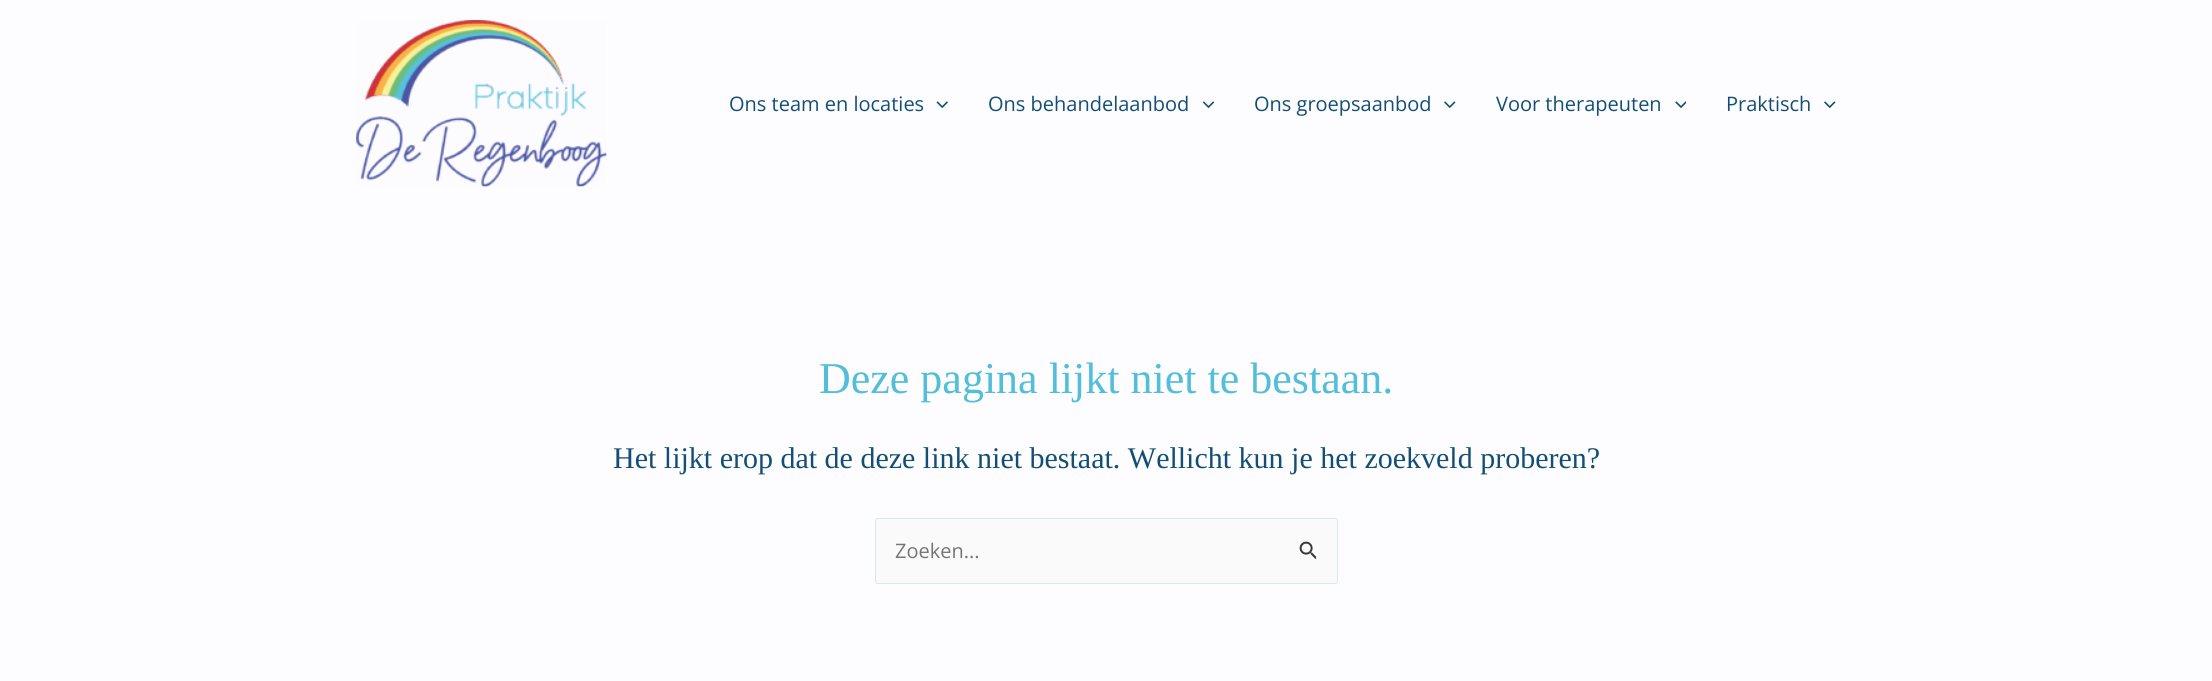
#include <cairo.h>
#include <math.h>
#include <stddef.h>


static void rgb(cairo_t *cr, int r, int g, int b)
{
	cairo_set_source_rgb(cr, r / 255.0, g / 255.0, b / 255.0);
}

static void face(cairo_t *cr, const char *family, double size, int italic, int bold)
{
	cairo_select_font_face(cr, family, italic ? CAIRO_FONT_SLANT_ITALIC : CAIRO_FONT_SLANT_NORMAL,
		bold ? CAIRO_FONT_WEIGHT_BOLD : CAIRO_FONT_WEIGHT_NORMAL);
	cairo_set_font_size(cr, size);
}

static void label(cairo_t *cr, double x, double y, const char *s)
{
	cairo_move_to(cr, x, y);
	cairo_show_text(cr, s);
}

static void rrect(cairo_t *cr, double x, double y, double w, double h, double r)
{
	cairo_new_sub_path(cr);
	cairo_arc(cr, x + w - r, y + h - r, r, 0, M_PI / 2);
	cairo_arc(cr, x + r, y + h - r, r, M_PI / 2, M_PI);
	cairo_arc(cr, x + r, y + r, r, M_PI, 1.5 * M_PI);
	cairo_arc(cr, x + w - r, y + r, r, 1.5 * M_PI, 2 * M_PI);
	cairo_close_path(cr);
}

static void image(cairo_t *cr, const char *path, double x, double y, double w, double h)
{
	cairo_surface_t *image = cairo_image_surface_create_from_png(path);
	cairo_save(cr);
	cairo_set_source_surface(cr, image, x, y);
	cairo_rectangle(cr, x, y, w, h);
	cairo_fill(cr);
	cairo_restore(cr);
	cairo_surface_destroy(image);
}

static void draw(cairo_t *cr) {
	rgb(cr, 253, 253, 255);
	cairo_paint(cr);
	image(cr, "image0.png", 356, 20, 251, 167);
	face(cr, "Open Sans", 20, 0, 0);
	rgb(cr, 19, 79, 116);
	label(cr, 729, 111, "Ons team en locaties");
	image(cr, "image1.png", 936, 101, 12, 8);
	label(cr, 988, 111, "Ons behandelaanbod");
	image(cr, "image2.png", 1203, 101, 11, 8);
	label(cr, 1254, 111, "Ons groepsaanbod");
	image(cr, "image3.png", 1444, 101, 12, 8);
	label(cr, 1496, 111, "Voor therapeuten");
	image(cr, "image4.png", 1675, 101, 11, 8);
	label(cr, 1726, 111, "Praktisch");
	image(cr, "image3.png", 1824, 101, 12, 8);
	face(cr, "Liberation Serif", 44, 0, 0);
	rgb(cr, 83, 190, 217);
	label(cr, 819, 393, "Deze pagina lijkt niet te bestaan.");
	face(cr, "Liberation Serif", 30, 0, 0);
	rgb(cr, 19, 79, 116);
	label(cr, 613, 468, "Het lijkt erop dat de deze link niet bestaat. Wellicht kun je het zoekveld proberen?");
	rgb(cr, 250, 250, 250);
	rrect(cr, 875.5, 518.5, 462, 65, 2);
	cairo_fill_preserve(cr);
	rgb(cr, 219, 232, 235);
	cairo_set_line_width(cr, 1);
	cairo_stroke(cr);
	face(cr, "Open Sans", 20, 0, 0);
	rgb(cr, 117, 117, 117);
	label(cr, 895, 558, "Zoeken...");
	image(cr, "image5.png", 1299, 541, 17, 18);
}

int main(void) {
	cairo_surface_t *surface = cairo_image_surface_create(CAIRO_FORMAT_RGB24, 2212, 681);
	cairo_t *cr = cairo_create(surface);
	cairo_font_options_t *options = cairo_font_options_create();
	cairo_font_options_set_hint_metrics(options, CAIRO_HINT_METRICS_OFF);
	cairo_font_options_set_hint_style(options, CAIRO_HINT_STYLE_NONE);
	cairo_set_font_options(cr, options);
	cairo_set_miter_limit(cr, 4);
	draw(cr);
	cairo_surface_write_to_png(surface, "render.png");
	cairo_font_options_destroy(options);
	cairo_destroy(cr);
	cairo_surface_destroy(surface);
	return 0;
}
